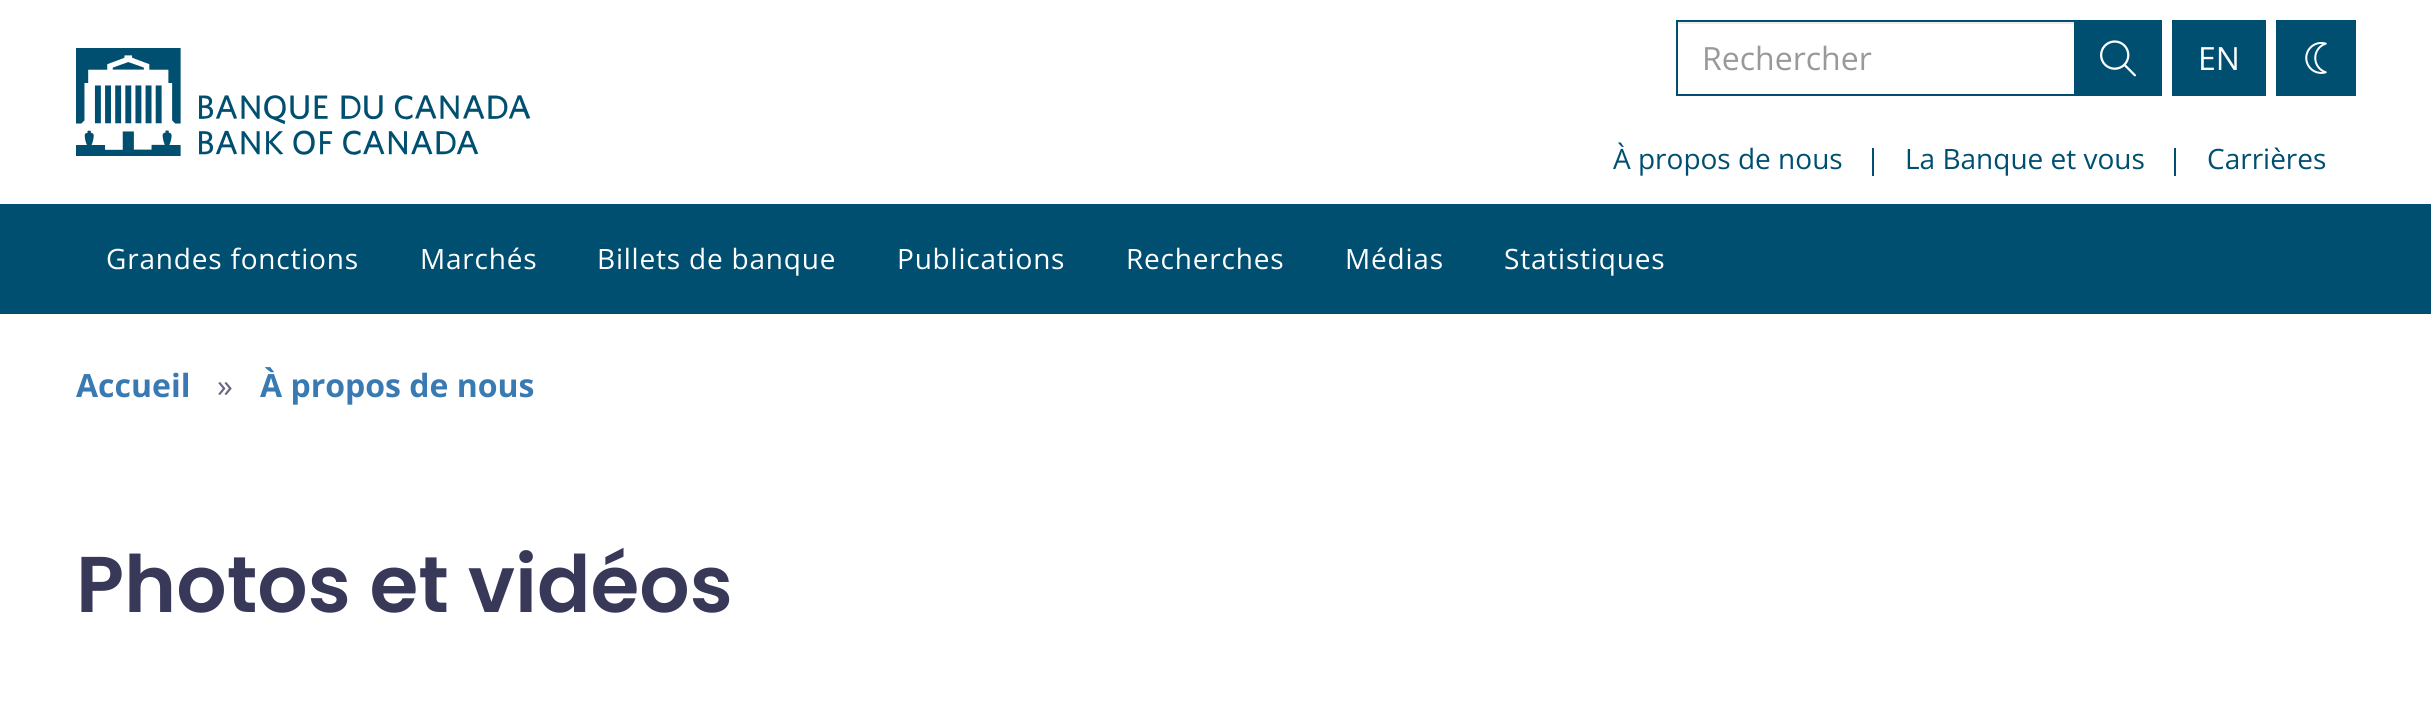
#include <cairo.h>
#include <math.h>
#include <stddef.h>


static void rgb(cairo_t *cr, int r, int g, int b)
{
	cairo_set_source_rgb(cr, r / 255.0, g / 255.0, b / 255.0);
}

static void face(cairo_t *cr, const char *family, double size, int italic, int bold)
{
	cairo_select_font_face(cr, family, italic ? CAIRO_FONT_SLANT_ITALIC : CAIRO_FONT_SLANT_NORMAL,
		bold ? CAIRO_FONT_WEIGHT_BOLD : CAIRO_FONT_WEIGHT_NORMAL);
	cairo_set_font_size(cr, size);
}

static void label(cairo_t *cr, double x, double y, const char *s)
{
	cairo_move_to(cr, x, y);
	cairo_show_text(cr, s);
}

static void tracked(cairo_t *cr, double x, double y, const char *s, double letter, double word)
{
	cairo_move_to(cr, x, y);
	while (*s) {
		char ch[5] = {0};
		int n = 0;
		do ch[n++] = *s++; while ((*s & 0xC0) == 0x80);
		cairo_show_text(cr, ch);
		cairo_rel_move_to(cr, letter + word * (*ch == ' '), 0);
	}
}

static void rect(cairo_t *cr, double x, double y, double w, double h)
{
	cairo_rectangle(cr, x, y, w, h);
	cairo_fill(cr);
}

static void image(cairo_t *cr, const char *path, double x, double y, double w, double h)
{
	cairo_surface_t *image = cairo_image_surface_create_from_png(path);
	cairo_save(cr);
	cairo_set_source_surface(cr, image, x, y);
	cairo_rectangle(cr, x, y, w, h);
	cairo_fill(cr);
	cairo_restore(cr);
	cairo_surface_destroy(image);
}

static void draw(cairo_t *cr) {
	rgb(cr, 255, 255, 255);
	cairo_paint(cr);
	image(cr, "image0.png", 76, 48, 455, 108);
	rgb(cr, 236, 236, 236);
	rect(cr, 1678, 22, 396, 2);
	cairo_rectangle(cr, 1677, 21, 398, 74);
	rgb(cr, 0, 79, 113);
	cairo_stroke(cr);
	face(cr, "Open Sans", 32, 0, 0);
	rgb(cr, 153, 153, 153);
	label(cr, 1702, 70, "Rechercher");
	rgb(cr, 0, 79, 113);
	rect(cr, 2076, 20, 86, 76);
	image(cr, "image1.png", 2100, 40, 36, 37);
	rect(cr, 2172, 20, 94, 76);
	rgb(cr, 255, 255, 255);
	label(cr, 2198, 70, "EN");
	rgb(cr, 0, 79, 113);
	rect(cr, 2276, 20, 80, 76);
	image(cr, "image2.png", 2305, 42, 22, 32);
	face(cr, "Open Sans", 28, 0, 0);
	label(cr, 1613, 169, "À propos de nous");
	rect(cr, 1872, 148, 2, 28);
	label(cr, 1905, 169, "La Banque et vous");
	rect(cr, 2174, 148, 2, 28);
	label(cr, 2207, 169, "Carrières");
	rect(cr, 0, 204, 2431, 110);
	rgb(cr, 255, 255, 255);
	tracked(cr, 106, 269, "Grandes fonctions", 0.8, 0);
	tracked(cr, 420, 269, "Marchés", 0.8, 0);
	tracked(cr, 597, 269, "Billets de banque", 0.8, 0);
	tracked(cr, 897, 269, "Publications", 0.8, 0);
	tracked(cr, 1126, 269, "Recherches", 0.8, 0);
	tracked(cr, 1345, 269, "Médias", 0.8, 0);
	tracked(cr, 1504, 269, "Statistiques", 0.8, 0);
	face(cr, "Open Sans", 32, 0, 1);
	rgb(cr, 57, 122, 178);
	label(cr, 76, 397, "Accueil");
	face(cr, "Open Sans", 32, 0, 0);
	rgb(cr, 103, 105, 132);
	label(cr, 217, 397, "»");
	face(cr, "Open Sans", 32, 0, 1);
	rgb(cr, 57, 122, 178);
	label(cr, 260, 397, "À propos de nous");
	face(cr, "Poppins SemiBold", 79, 0, 0);
	rgb(cr, 56, 56, 89);
	label(cr, 76, 612, "Photos et vidéos");
}

int main(void) {
	cairo_surface_t *surface = cairo_image_surface_create(CAIRO_FORMAT_RGB24, 2431, 719);
	cairo_t *cr = cairo_create(surface);
	cairo_font_options_t *options = cairo_font_options_create();
	cairo_font_options_set_hint_metrics(options, CAIRO_HINT_METRICS_OFF);
	cairo_font_options_set_hint_style(options, CAIRO_HINT_STYLE_NONE);
	cairo_set_font_options(cr, options);
	cairo_set_miter_limit(cr, 4);
	draw(cr);
	cairo_surface_write_to_png(surface, "render.png");
	cairo_font_options_destroy(options);
	cairo_destroy(cr);
	cairo_surface_destroy(surface);
	return 0;
}
